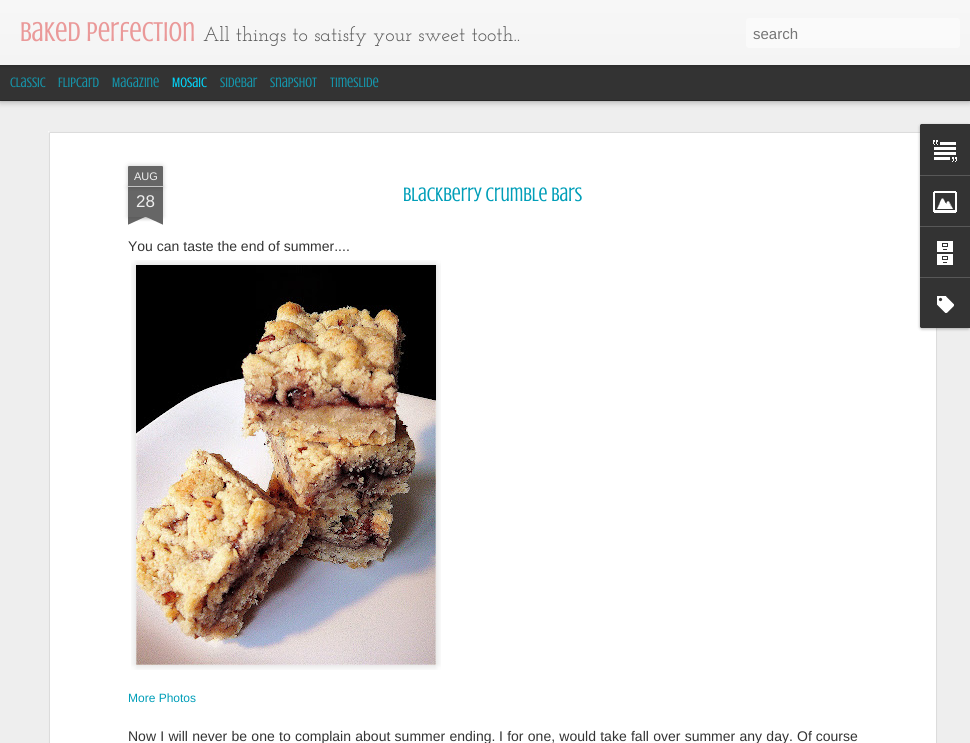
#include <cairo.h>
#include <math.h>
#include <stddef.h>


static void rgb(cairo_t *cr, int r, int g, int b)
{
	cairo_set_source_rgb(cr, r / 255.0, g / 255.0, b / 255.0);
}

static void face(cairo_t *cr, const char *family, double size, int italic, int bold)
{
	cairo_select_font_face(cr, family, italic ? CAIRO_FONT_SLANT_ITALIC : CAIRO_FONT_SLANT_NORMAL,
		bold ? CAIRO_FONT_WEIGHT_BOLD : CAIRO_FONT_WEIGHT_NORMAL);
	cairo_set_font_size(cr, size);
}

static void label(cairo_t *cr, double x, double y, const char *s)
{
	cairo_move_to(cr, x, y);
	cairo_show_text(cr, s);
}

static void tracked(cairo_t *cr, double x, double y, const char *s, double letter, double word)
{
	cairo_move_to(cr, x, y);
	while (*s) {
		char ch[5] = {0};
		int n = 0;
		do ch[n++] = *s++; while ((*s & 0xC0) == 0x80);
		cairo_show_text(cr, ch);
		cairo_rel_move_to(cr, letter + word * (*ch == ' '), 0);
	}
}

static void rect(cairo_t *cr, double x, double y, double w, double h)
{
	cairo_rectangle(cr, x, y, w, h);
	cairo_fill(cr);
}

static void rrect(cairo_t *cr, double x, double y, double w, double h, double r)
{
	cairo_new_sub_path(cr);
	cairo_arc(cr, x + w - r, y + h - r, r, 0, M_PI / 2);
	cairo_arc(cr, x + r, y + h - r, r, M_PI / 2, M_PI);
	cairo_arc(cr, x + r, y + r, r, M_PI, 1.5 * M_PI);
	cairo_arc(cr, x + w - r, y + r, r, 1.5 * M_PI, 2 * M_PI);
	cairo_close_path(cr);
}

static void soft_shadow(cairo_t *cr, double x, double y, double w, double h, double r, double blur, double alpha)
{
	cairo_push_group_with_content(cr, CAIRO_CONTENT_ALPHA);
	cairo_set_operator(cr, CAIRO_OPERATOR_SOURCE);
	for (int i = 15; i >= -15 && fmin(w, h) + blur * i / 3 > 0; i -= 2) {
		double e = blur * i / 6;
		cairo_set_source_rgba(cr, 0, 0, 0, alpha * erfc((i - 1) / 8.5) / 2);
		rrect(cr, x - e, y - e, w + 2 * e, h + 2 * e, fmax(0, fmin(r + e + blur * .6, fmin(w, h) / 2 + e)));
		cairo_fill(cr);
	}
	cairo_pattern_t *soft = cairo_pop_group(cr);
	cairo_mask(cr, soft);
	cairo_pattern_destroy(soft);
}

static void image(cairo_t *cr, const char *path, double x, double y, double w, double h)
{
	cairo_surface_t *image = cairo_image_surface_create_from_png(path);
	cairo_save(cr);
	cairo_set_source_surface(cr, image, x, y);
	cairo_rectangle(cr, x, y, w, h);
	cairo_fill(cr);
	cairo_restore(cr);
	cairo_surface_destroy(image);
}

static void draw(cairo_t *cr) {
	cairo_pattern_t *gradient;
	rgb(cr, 51, 51, 51);
	cairo_paint(cr);
	rgb(cr, 238, 238, 238);
	rect(cr, 0, 101, 970, 642);
	rgb(cr, 0, 0, 0);
	soft_shadow(cr, 0, 65, 970, 35, 0, 4, 0.5);
	rgb(cr, 51, 51, 51);
	rect(cr, 0, 65, 970, 35);
	rgb(cr, 0, 0, 0);
	soft_shadow(cr, 0, 0, 970, 65, 0, 2.5, 0.3);
	gradient = cairo_pattern_create_linear(0, 0, 0, 65);
	cairo_pattern_add_color_stop_rgba(gradient, 0, 0.969, 0.969, 0.969, 1);
	cairo_pattern_add_color_stop_rgba(gradient, 1, 0.957, 0.957, 0.957, 1);
	cairo_set_source(cr, gradient);
	cairo_pattern_destroy(gradient);
	rect(cr, 0, 0, 970, 65);
	face(cr, "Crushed", 28, 0, 0);
	rgb(cr, 234, 153, 153);
	label(cr, 20, 41, "Baked Perfection");
	face(cr, "Josefin Slab Thin", 20, 0, 0);
	rgb(cr, 85, 85, 85);
	label(cr, 203, 41, "All things to satisfy your sweet tooth..");
	rgb(cr, 250, 250, 250);
	rrect(cr, 746, 18, 214, 30, 3);
	cairo_fill(cr);
	face(cr, "Liberation Sans", 15, 0, 0);
	rgb(cr, 117, 117, 117);
	label(cr, 753, 39, "search");
	face(cr, "Crushed", 14, 0, 0);
	rgb(cr, 20, 151, 173);
	label(cr, 10, 87, "Classic");
	label(cr, 58, 87, "Flipcard");
	label(cr, 112, 87, "Magazine");
	rgb(cr, 0, 218, 255);
	label(cr, 172, 87, "Mosaic");
	rgb(cr, 20, 151, 173);
	label(cr, 220, 87, "Sidebar");
	label(cr, 270, 87, "Snapshot");
	label(cr, 330, 87, "Timeslide");
	rgb(cr, 255, 255, 255);
	rect(cr, 48, 131, 890, 612);
	image(cr, "image0.png", 48, 131, 890, 612);
	rgb(cr, 0, 0, 0);
	soft_shadow(cr, 128, 187, 35, 30, 0, 2.5, 0.2);
	rgb(cr, 102, 102, 102);
	rect(cr, 128, 187, 35, 30);
	rgb(cr, 0, 0, 0);
	soft_shadow(cr, 128, 166, 35, 21, 1, 2.5, 0.2);
	rgb(cr, 102, 102, 102);
	cairo_new_path(cr);
	cairo_move_to(cr, 129, 166);
	cairo_line_to(cr, 162, 166);
	cairo_curve_to(cr, 162.5, 166, 163, 166.5, 163, 167);
	cairo_line_to(cr, 163, 187);
	cairo_line_to(cr, 128, 187);
	cairo_line_to(cr, 128, 167);
	cairo_curve_to(cr, 128, 166.5, 128.5, 166, 129, 166);
	cairo_close_path(cr);
	cairo_fill(cr);
	rgb(cr, 194, 194, 194);
	rect(cr, 128, 186, 35, 1);
	face(cr, "Liberation Sans", 11, 0, 0);
	rgb(cr, 238, 238, 238);
	label(cr, 134, 180, "AUG");
	face(cr, "Liberation Sans", 17, 0, 0);
	label(cr, 136, 207, "28");
	cairo_save(cr);
	cairo_rectangle(cr, 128, 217, 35, 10);
	cairo_clip(cr);
	rgb(cr, 0, 0, 0);
	soft_shadow(cr, 119, 207, 50, 10, 0, 2.5, 0.2);
	cairo_restore(cr);
	cairo_save(cr);
	cairo_rectangle(cr, 128, 217, 35, 10);
	cairo_clip(cr);
	rgb(cr, 102, 102, 102);
	cairo_new_path(cr);
	cairo_move_to(cr, 119, 218);
	cairo_line_to(cr, 165, 197);
	cairo_line_to(cr, 169, 206);
	cairo_line_to(cr, 123, 227);
	cairo_close_path(cr);
	cairo_fill(cr);
	cairo_restore(cr);
	cairo_save(cr);
	cairo_rectangle(cr, 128, 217, 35, 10);
	cairo_clip(cr);
	rgb(cr, 0, 0, 0);
	soft_shadow(cr, 122, 207, 50, 10, 0, 2.5, 0.2);
	cairo_restore(cr);
	cairo_save(cr);
	cairo_rectangle(cr, 128, 217, 35, 10);
	cairo_clip(cr);
	rgb(cr, 102, 102, 102);
	cairo_new_path(cr);
	cairo_move_to(cr, 126, 197);
	cairo_line_to(cr, 172, 218);
	cairo_line_to(cr, 168, 227);
	cairo_line_to(cr, 122, 206);
	cairo_close_path(cr);
	cairo_fill(cr);
	cairo_restore(cr);
	face(cr, "Crushed", 20, 0, 0);
	rgb(cr, 0, 158, 184);
	label(cr, 403, 201, "Blackberry Crumble Bars");
	face(cr, "Liberation Sans", 14, 0, 0);
	rgb(cr, 51, 51, 51);
	label(cr, 128, 251, "You can taste the end of summer....");
	image(cr, "image1.png", 131, 260, 310, 410);
	face(cr, "Liberation Sans", 12, 0, 0);
	rgb(cr, 0, 158, 184);
	label(cr, 128, 702, "More Photos");
	face(cr, "Liberation Sans", 14, 0, 0);
	rgb(cr, 51, 51, 51);
	tracked(cr, 128, 741, "Now I will never be one to complain about summer ending.", 0, 0.4);
	tracked(cr, 499, 741, "I for one, would take fall over summer any day.", 0, 0.4);
	label(cr, 797, 741, "Of course");
	rgb(cr, 0, 0, 0);
	soft_shadow(cr, 920, 125, 50, 204, 2, 1.5, 0.3);
	rgb(cr, 51, 51, 51);
	cairo_new_path(cr);
	cairo_move_to(cr, 922, 124);
	cairo_line_to(cr, 970, 124);
	cairo_line_to(cr, 970, 328);
	cairo_line_to(cr, 922, 328);
	cairo_curve_to(cr, 921, 328, 920, 327, 920, 326);
	cairo_line_to(cr, 920, 126);
	cairo_curve_to(cr, 920, 125, 921, 124, 922, 124);
	cairo_close_path(cr);
	cairo_fill(cr);
	cairo_new_path(cr);
	cairo_move_to(cr, 922, 124);
	cairo_line_to(cr, 970, 124);
	cairo_line_to(cr, 970, 175);
	cairo_line_to(cr, 920, 175);
	cairo_line_to(cr, 920, 126);
	cairo_curve_to(cr, 920, 125, 921, 124, 922, 124);
	cairo_close_path(cr);
	cairo_fill(cr);
	image(cr, "image2.png", 933, 140, 24, 22);
	rgb(cr, 88, 88, 88);
	rect(cr, 920, 175, 50, 1);
	image(cr, "image3.png", 933, 191, 24, 22);
	rect(cr, 920, 226, 50, 1);
	image(cr, "image4.png", 937, 241, 16, 24);
	rgb(cr, 51, 51, 51);
	cairo_new_path(cr);
	cairo_move_to(cr, 920, 277);
	cairo_line_to(cr, 970, 277);
	cairo_line_to(cr, 970, 328);
	cairo_line_to(cr, 922, 328);
	cairo_curve_to(cr, 921, 328, 920, 327, 920, 326);
	cairo_close_path(cr);
	cairo_fill(cr);
	rgb(cr, 88, 88, 88);
	rect(cr, 920, 277, 50, 1);
	image(cr, "image5.png", 937, 296, 17, 17);
}

int main(void) {
	cairo_surface_t *surface = cairo_image_surface_create(CAIRO_FORMAT_RGB24, 970, 743);
	cairo_t *cr = cairo_create(surface);
	cairo_font_options_t *options = cairo_font_options_create();
	cairo_font_options_set_hint_metrics(options, CAIRO_HINT_METRICS_OFF);
	cairo_font_options_set_hint_style(options, CAIRO_HINT_STYLE_NONE);
	cairo_set_font_options(cr, options);
	cairo_set_miter_limit(cr, 4);
	draw(cr);
	cairo_surface_write_to_png(surface, "render.png");
	cairo_font_options_destroy(options);
	cairo_destroy(cr);
	cairo_surface_destroy(surface);
	return 0;
}
